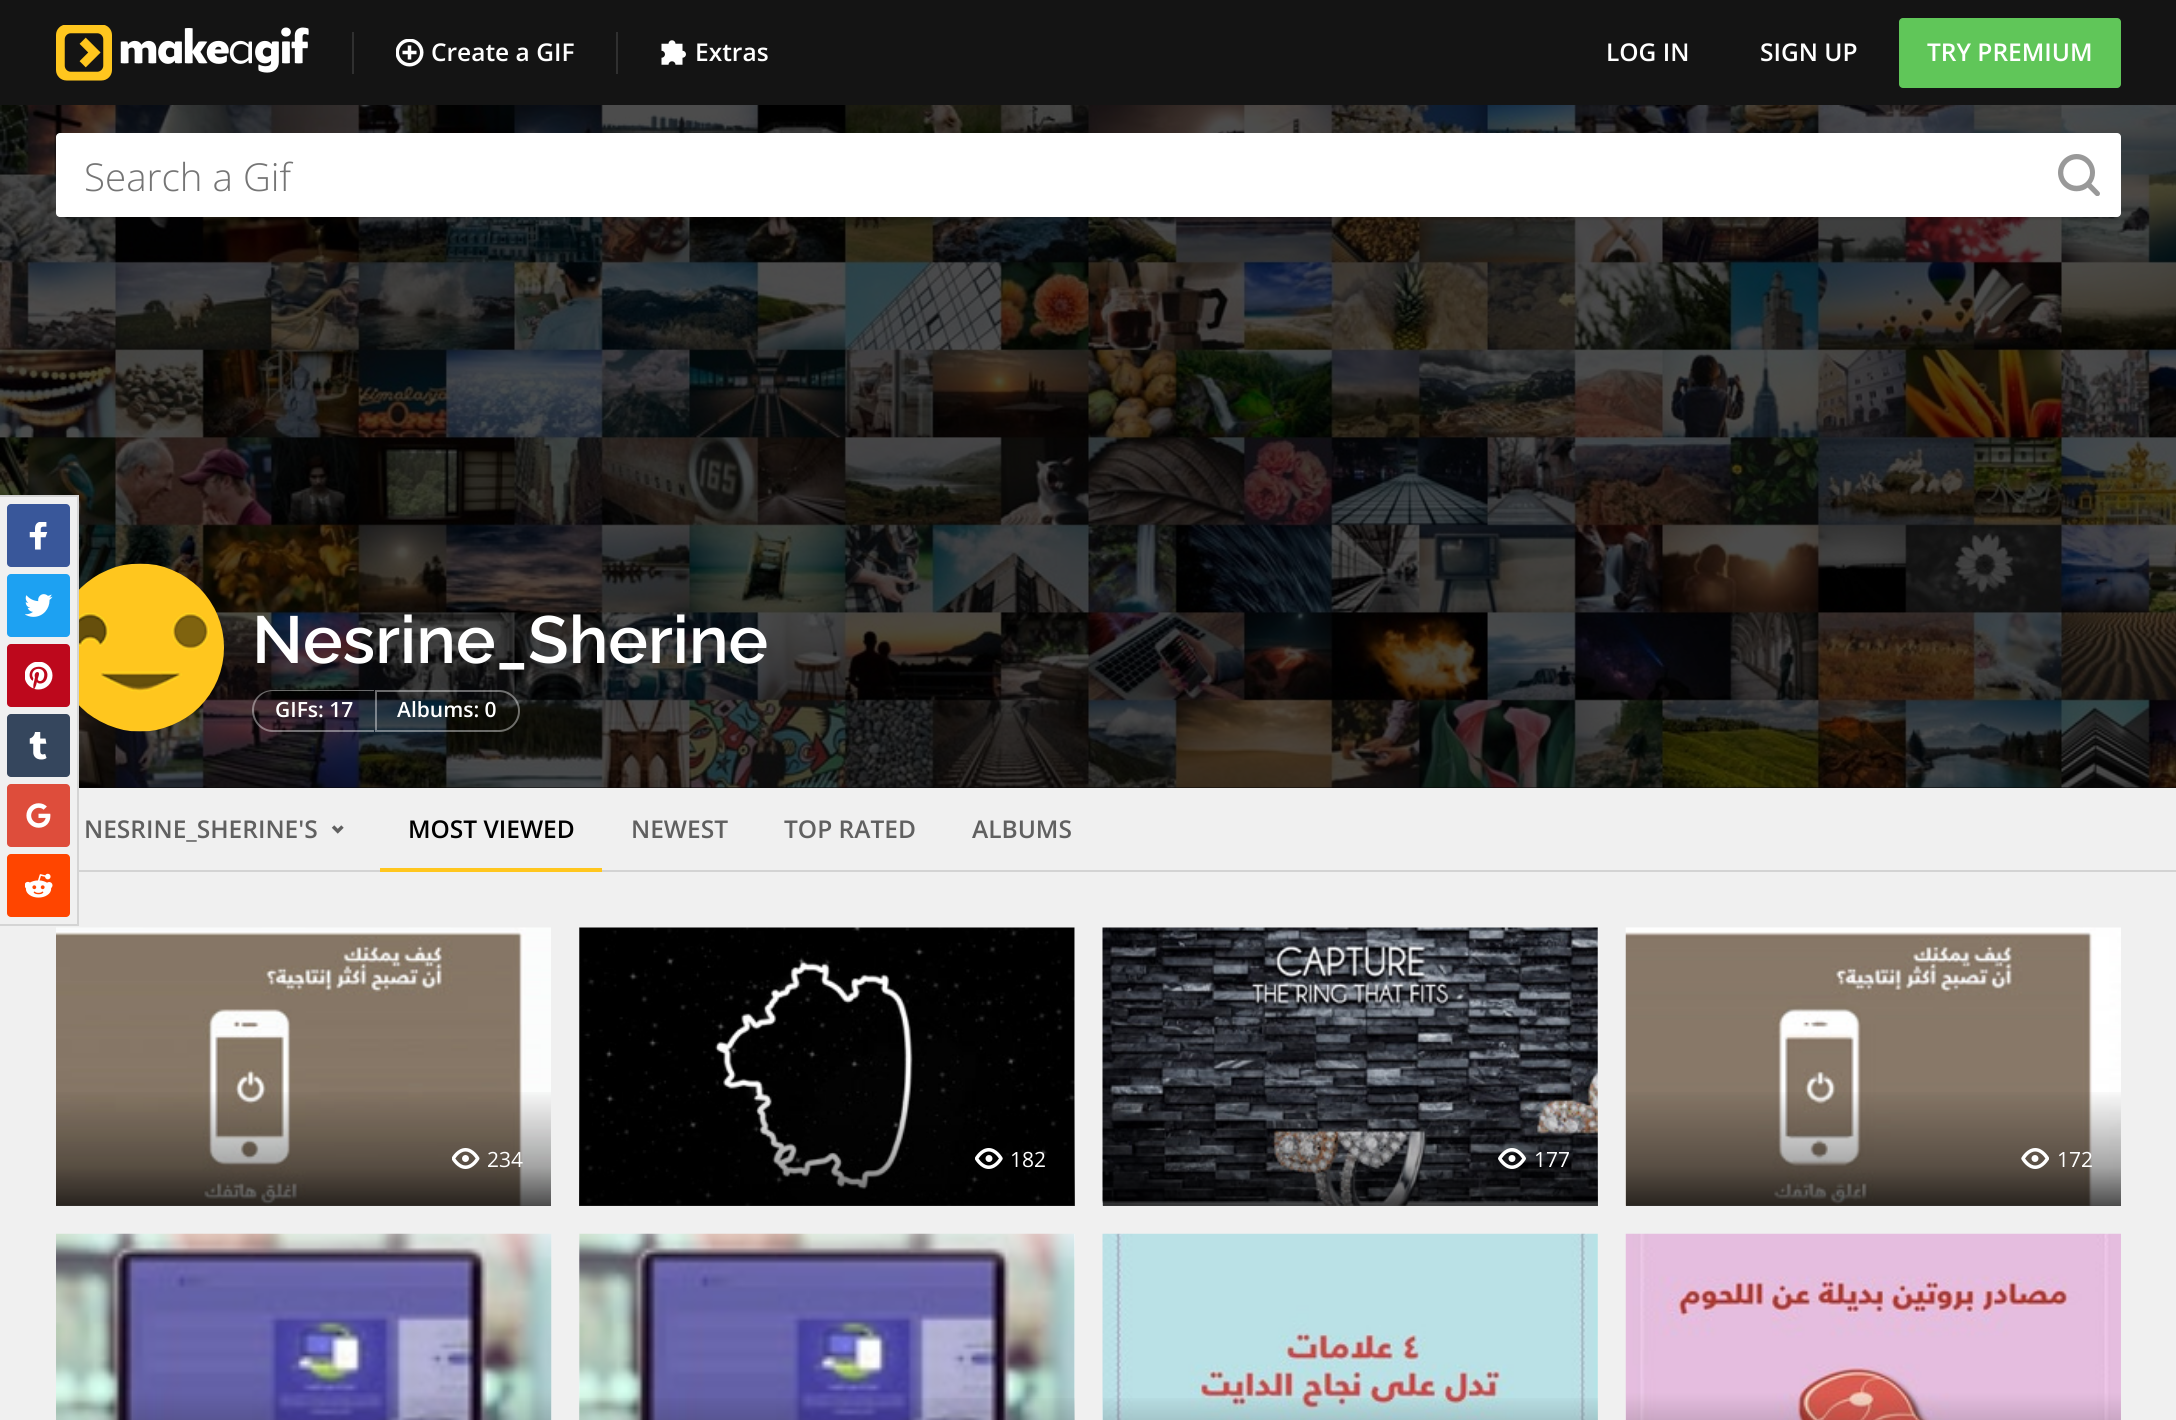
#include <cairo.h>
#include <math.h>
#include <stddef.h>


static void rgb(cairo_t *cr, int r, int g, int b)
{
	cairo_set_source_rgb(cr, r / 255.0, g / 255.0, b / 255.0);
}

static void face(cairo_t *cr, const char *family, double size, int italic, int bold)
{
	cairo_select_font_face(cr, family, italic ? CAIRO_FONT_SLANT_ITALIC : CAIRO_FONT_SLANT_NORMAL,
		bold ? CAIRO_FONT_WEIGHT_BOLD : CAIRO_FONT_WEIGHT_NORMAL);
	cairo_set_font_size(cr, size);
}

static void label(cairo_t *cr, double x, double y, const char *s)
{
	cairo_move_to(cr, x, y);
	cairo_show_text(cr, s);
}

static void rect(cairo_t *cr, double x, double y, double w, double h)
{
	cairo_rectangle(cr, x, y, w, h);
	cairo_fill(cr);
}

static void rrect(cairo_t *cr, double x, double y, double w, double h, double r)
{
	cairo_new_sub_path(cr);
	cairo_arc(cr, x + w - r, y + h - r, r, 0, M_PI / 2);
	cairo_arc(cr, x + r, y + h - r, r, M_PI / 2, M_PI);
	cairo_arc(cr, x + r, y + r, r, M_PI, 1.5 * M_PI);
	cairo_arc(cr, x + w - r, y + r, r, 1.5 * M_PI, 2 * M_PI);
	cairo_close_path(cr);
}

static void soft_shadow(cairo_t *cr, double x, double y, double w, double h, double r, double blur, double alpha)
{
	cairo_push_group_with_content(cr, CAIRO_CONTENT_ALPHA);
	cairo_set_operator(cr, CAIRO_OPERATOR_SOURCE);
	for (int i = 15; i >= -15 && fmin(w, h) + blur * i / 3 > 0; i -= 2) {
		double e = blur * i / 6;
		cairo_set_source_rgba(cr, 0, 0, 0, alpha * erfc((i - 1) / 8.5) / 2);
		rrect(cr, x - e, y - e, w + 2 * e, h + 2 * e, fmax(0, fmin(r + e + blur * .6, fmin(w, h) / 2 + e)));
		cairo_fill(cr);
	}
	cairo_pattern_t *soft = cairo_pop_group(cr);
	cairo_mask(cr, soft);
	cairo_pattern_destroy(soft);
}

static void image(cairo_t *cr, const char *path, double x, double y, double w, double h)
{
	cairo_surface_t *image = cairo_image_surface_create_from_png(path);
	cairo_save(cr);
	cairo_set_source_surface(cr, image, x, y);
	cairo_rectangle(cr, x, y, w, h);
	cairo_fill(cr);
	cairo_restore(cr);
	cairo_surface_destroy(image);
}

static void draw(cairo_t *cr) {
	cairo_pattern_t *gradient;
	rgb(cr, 240, 240, 240);
	cairo_paint(cr);
	rgb(cr, 20, 20, 20);
	rect(cr, 0, 0, 2176, 105);
	image(cr, "image0.png", 56, 25, 253, 56);
	rgb(cr, 48, 48, 48);
	rect(cr, 352, 32, 2, 42);
	image(cr, "image1.png", 396, 39, 28, 28);
	face(cr, "Open Sans SemiBold", 24.5, 0, 0);
	rgb(cr, 255, 255, 255);
	label(cr, 431, 61, "Create a GIF");
	rgb(cr, 48, 48, 48);
	rect(cr, 616, 32, 2, 42);
	image(cr, "image2.png", 661, 40, 25, 25);
	rgb(cr, 255, 255, 255);
	label(cr, 695, 61, "Extras");
	label(cr, 1606, 61, "LOG IN");
	label(cr, 1760, 61, "SIGN UP");
	rgb(cr, 96, 198, 89);
	rrect(cr, 1899, 18, 222, 70, 4);
	cairo_fill(cr);
	rgb(cr, 255, 255, 255);
	label(cr, 1927, 61, "TRY PREMIUM");
	rgb(cr, 9, 9, 9);
	rect(cr, 79, 787, 2097, 1);
	image(cr, "image9.png", 0, 105, 2176, 683);
	rgb(cr, 240, 240, 240);
	rect(cr, 0, 495, 79, 293);
	rgb(cr, 211, 211, 211);
	cairo_new_path(cr);
	cairo_move_to(cr, 0, 495);
	cairo_line_to(cr, 79, 495);
	cairo_line_to(cr, 77, 497);
	cairo_line_to(cr, 0, 497);
	cairo_close_path(cr);
	cairo_fill(cr);
	cairo_set_source_rgba(cr, 0, 0, 0, 0.12);
	cairo_new_path(cr);
	cairo_move_to(cr, 79, 495);
	cairo_line_to(cr, 79, 926);
	cairo_line_to(cr, 77, 924);
	cairo_line_to(cr, 77, 497);
	cairo_close_path(cr);
	cairo_fill(cr);
	cairo_new_path(cr);
	cairo_move_to(cr, 79, 926);
	cairo_line_to(cr, 0, 926);
	cairo_line_to(cr, 0, 924);
	cairo_line_to(cr, 77, 924);
	cairo_close_path(cr);
	cairo_fill(cr);
	rgb(cr, 57, 87, 154);
	rrect(cr, 7, 504, 63, 63, 4);
	cairo_fill(cr);
	image(cr, "image3.png", 29, 522, 19, 28);
	rgb(cr, 29, 161, 242);
	rrect(cr, 7, 574, 63, 63, 4);
	cairo_fill(cr);
	image(cr, "image4.png", 25, 594, 28, 23);
	rgb(cr, 189, 8, 28);
	rrect(cr, 7, 644, 63, 63, 4);
	cairo_fill(cr);
	image(cr, "image5.png", 25, 662, 28, 28);
	rgb(cr, 53, 70, 93);
	rrect(cr, 7, 714, 63, 63, 4);
	cairo_fill(cr);
	image(cr, "image6.png", 29, 732, 18, 28);
	rgb(cr, 222, 77, 59);
	rrect(cr, 7, 784, 63, 63, 4);
	cairo_fill(cr);
	image(cr, "image7.png", 26, 803, 25, 25);
	rgb(cr, 255, 69, 0);
	rrect(cr, 7, 854, 63, 63, 4);
	cairo_fill(cr);
	image(cr, "image8.png", 25, 873, 28, 25);
	rgb(cr, 0, 0, 0);
	soft_shadow(cr, 60, 142, 2058, 77, 0, 1, 0.15);
	rgb(cr, 255, 255, 255);
	rrect(cr, 56, 133, 2065, 84, 4);
	cairo_fill(cr);
	face(cr, "Open Sans Light", 38.5, 0, 0);
	rgb(cr, 117, 117, 117);
	label(cr, 84, 191, "Search a Gif");
	image(cr, "image10.png", 2058, 154, 42, 42);
	image(cr, "image11.png", 79, 563, 145, 169);
	face(cr, "Raleway SemiBold", 66.5, 0, 0);
	rgb(cr, 255, 255, 255);
	label(cr, 252, 663, "Nesrine_Sherine");
	cairo_set_source_rgba(cr, 1, 1, 1, 0.4);
	cairo_set_fill_rule(cr, CAIRO_FILL_RULE_EVEN_ODD);
	cairo_new_path(cr);
	cairo_move_to(cr, 273, 690);
	cairo_line_to(cr, 374, 690);
	cairo_line_to(cr, 374, 732);
	cairo_line_to(cr, 273, 732);
	cairo_curve_to(cr, 261, 732, 252, 722, 252, 710);
	cairo_curve_to(cr, 252, 699, 261, 690, 273, 690);
	cairo_close_path(cr);
	cairo_move_to(cr, 273, 691);
	cairo_line_to(cr, 374, 691);
	cairo_line_to(cr, 374, 730);
	cairo_line_to(cr, 273, 730);
	cairo_curve_to(cr, 262, 730, 254, 721, 254, 710);
	cairo_curve_to(cr, 254, 700, 262, 691, 273, 691);
	cairo_close_path(cr);
	cairo_fill(cr);
	face(cr, "Open Sans SemiBold", 21, 0, 0);
	rgb(cr, 255, 255, 255);
	label(cr, 275, 717, "GIFs: 17");
	cairo_new_path(cr);
	cairo_move_to(cr, 376, 691);
	cairo_line_to(cr, 499, 691);
	cairo_curve_to(cr, 510, 691, 519, 700, 519, 711);
	cairo_curve_to(cr, 519, 722, 510, 731, 499, 731);
	cairo_line_to(cr, 376, 731);
	cairo_close_path(cr);
	cairo_set_source_rgba(cr, 1, 1, 1, 0.4);
	cairo_stroke(cr);
	rgb(cr, 255, 255, 255);
	label(cr, 397, 717, "Albums: 0");
	rgb(cr, 211, 211, 211);
	rect(cr, 79, 870, 2097, 2);
	face(cr, "Open Sans SemiBold", 24.5, 0, 0);
	rgb(cr, 96, 96, 96);
	label(cr, 84, 838, "NESRINE_SHERINE'S");
	image(cr, "image12.png", 331, 825, 13, 9);
	rgb(cr, 255, 198, 30);
	rect(cr, 380, 868, 222, 4);
	rgb(cr, 0, 0, 0);
	label(cr, 408, 838, "MOST VIEWED");
	rgb(cr, 96, 96, 96);
	label(cr, 631, 838, "NEWEST");
	label(cr, 784, 838, "TOP RATED");
	label(cr, 972, 838, "ALBUMS");
	image(cr, "image13.png", 56, 927, 495, 279);
	gradient = cairo_pattern_create_linear(304, 1206, 304, 1087);
	cairo_pattern_add_color_stop_rgba(gradient, 0, 0, 0, 0, 0.7);
	cairo_pattern_add_color_stop_rgba(gradient, 0.33, 0, 0, 0, 0.35);
	cairo_pattern_add_color_stop_rgba(gradient, 1, 0, 0, 0, 0);
	cairo_set_source(cr, gradient);
	cairo_pattern_destroy(gradient);
	rect(cr, 56, 1092, 495, 114);
	image(cr, "image14.png", 452, 1148, 28, 21);
	face(cr, "Open Sans", 21, 0, 0);
	rgb(cr, 255, 255, 255);
	label(cr, 487, 1167, "234");
	rect(cr, 579, 928, 496, 278);
	image(cr, "image15.png", 579, 927, 496, 279);
	gradient = cairo_pattern_create_linear(827, 1206, 827, 1087);
	cairo_pattern_add_color_stop_rgba(gradient, 0, 0, 0, 0, 0.7);
	cairo_pattern_add_color_stop_rgba(gradient, 0.33, 0, 0, 0, 0.35);
	cairo_pattern_add_color_stop_rgba(gradient, 1, 0, 0, 0, 0);
	cairo_set_source(cr, gradient);
	cairo_pattern_destroy(gradient);
	rect(cr, 579, 1092, 496, 114);
	image(cr, "image16.png", 975, 1148, 28, 21);
	rgb(cr, 255, 255, 255);
	label(cr, 1010, 1167, "182");
	rect(cr, 1103, 928, 495, 278);
	image(cr, "image17.png", 1102, 927, 496, 279);
	gradient = cairo_pattern_create_linear(1350, 1206, 1350, 1087);
	cairo_pattern_add_color_stop_rgba(gradient, 0, 0, 0, 0, 0.7);
	cairo_pattern_add_color_stop_rgba(gradient, 0.33, 0, 0, 0, 0.35);
	cairo_pattern_add_color_stop_rgba(gradient, 1, 0, 0, 0, 0);
	cairo_set_source(cr, gradient);
	cairo_pattern_destroy(gradient);
	rect(cr, 1103, 1092, 495, 114);
	image(cr, "image18.png", 1498, 1148, 28, 21);
	rgb(cr, 255, 255, 255);
	label(cr, 1534, 1167, "177");
	image(cr, "image19.png", 1625, 927, 496, 279);
	gradient = cairo_pattern_create_linear(1873, 1206, 1873, 1087);
	cairo_pattern_add_color_stop_rgba(gradient, 0, 0, 0, 0, 0.7);
	cairo_pattern_add_color_stop_rgba(gradient, 0.33, 0, 0, 0, 0.35);
	cairo_pattern_add_color_stop_rgba(gradient, 1, 0, 0, 0, 0);
	cairo_set_source(cr, gradient);
	cairo_pattern_destroy(gradient);
	rect(cr, 1626, 1092, 495, 114);
	image(cr, "image20.png", 2021, 1148, 28, 21);
	rgb(cr, 255, 255, 255);
	label(cr, 2057, 1167, "172");
	image(cr, "image21.png", 56, 1233, 496, 187);
	rect(cr, 579, 1234, 496, 186);
	image(cr, "image22.png", 579, 1233, 496, 187);
	gradient = cairo_pattern_create_linear(827, 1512, 827, 1393);
	cairo_pattern_add_color_stop_rgba(gradient, 0, 0, 0, 0, 0.7);
	cairo_pattern_add_color_stop_rgba(gradient, 0.33, 0, 0, 0, 0.35);
	cairo_pattern_add_color_stop_rgba(gradient, 1, 0, 0, 0, 0);
	cairo_set_source(cr, gradient);
	cairo_pattern_destroy(gradient);
	rect(cr, 579, 1398, 496, 22);
	image(cr, "image23.png", 1102, 1233, 496, 187);
	gradient = cairo_pattern_create_linear(1350, 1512, 1350, 1393);
	cairo_pattern_add_color_stop_rgba(gradient, 0, 0, 0, 0, 0.7);
	cairo_pattern_add_color_stop_rgba(gradient, 0.33, 0, 0, 0, 0.35);
	cairo_pattern_add_color_stop_rgba(gradient, 1, 0, 0, 0, 0);
	cairo_set_source(cr, gradient);
	cairo_pattern_destroy(gradient);
	rect(cr, 1103, 1398, 495, 22);
	image(cr, "image24.png", 1625, 1233, 496, 187);
}

int main(void) {
	cairo_surface_t *surface = cairo_image_surface_create(CAIRO_FORMAT_RGB24, 2176, 1420);
	cairo_t *cr = cairo_create(surface);
	cairo_font_options_t *options = cairo_font_options_create();
	cairo_font_options_set_hint_metrics(options, CAIRO_HINT_METRICS_OFF);
	cairo_font_options_set_hint_style(options, CAIRO_HINT_STYLE_NONE);
	cairo_set_font_options(cr, options);
	cairo_set_miter_limit(cr, 4);
	draw(cr);
	cairo_surface_write_to_png(surface, "render.png");
	cairo_font_options_destroy(options);
	cairo_destroy(cr);
	cairo_surface_destroy(surface);
	return 0;
}
